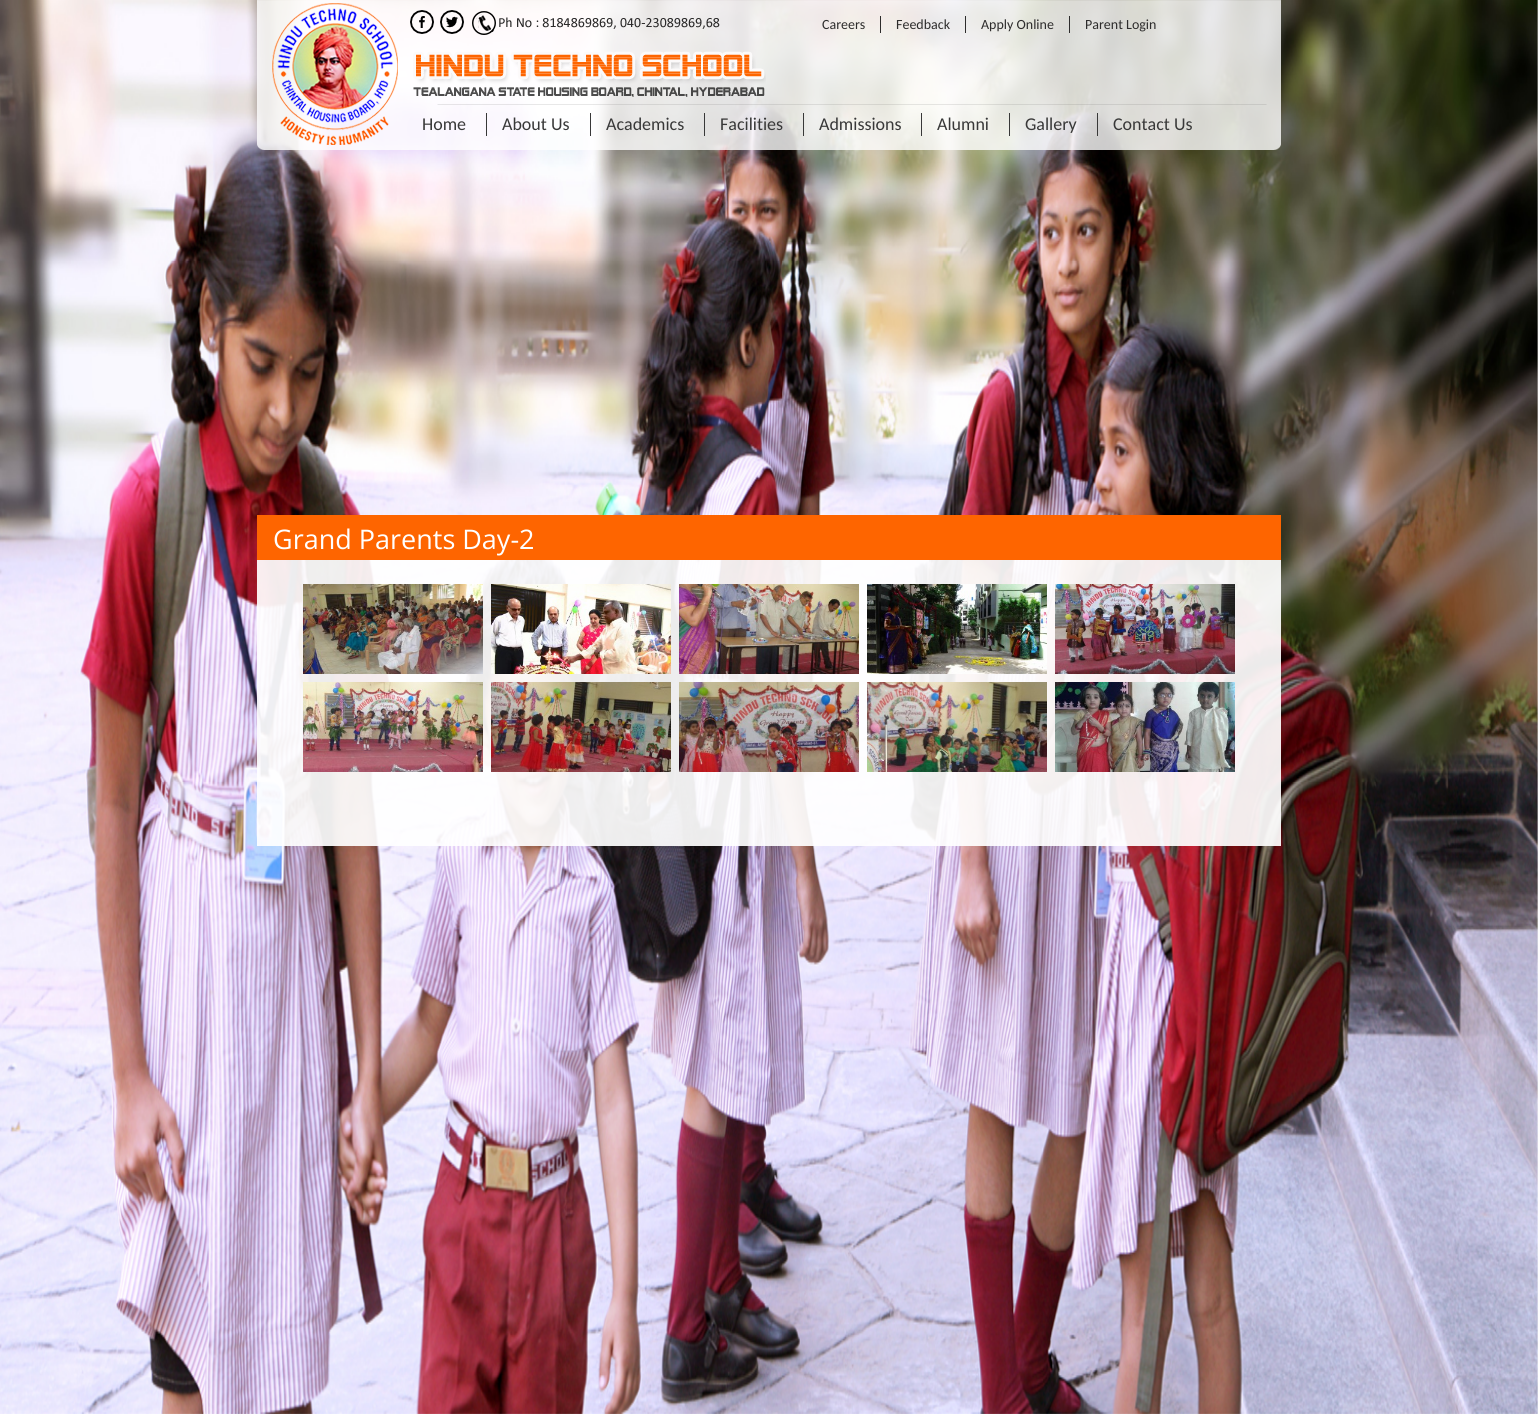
#include <cairo.h>
#include <math.h>
#include <stddef.h>


static void rgb(cairo_t *cr, int r, int g, int b)
{
	cairo_set_source_rgb(cr, r / 255.0, g / 255.0, b / 255.0);
}

static void face(cairo_t *cr, const char *family, double size, int italic, int bold)
{
	cairo_select_font_face(cr, family, italic ? CAIRO_FONT_SLANT_ITALIC : CAIRO_FONT_SLANT_NORMAL,
		bold ? CAIRO_FONT_WEIGHT_BOLD : CAIRO_FONT_WEIGHT_NORMAL);
	cairo_set_font_size(cr, size);
}

static void label(cairo_t *cr, double x, double y, const char *s)
{
	cairo_move_to(cr, x, y);
	cairo_show_text(cr, s);
}

static void rect(cairo_t *cr, double x, double y, double w, double h)
{
	cairo_rectangle(cr, x, y, w, h);
	cairo_fill(cr);
}

static void image(cairo_t *cr, const char *path, double x, double y, double w, double h)
{
	cairo_surface_t *image = cairo_image_surface_create_from_png(path);
	cairo_save(cr);
	cairo_set_source_surface(cr, image, x, y);
	cairo_rectangle(cr, x, y, w, h);
	cairo_fill(cr);
	cairo_restore(cr);
	cairo_surface_destroy(image);
}

static void draw(cairo_t *cr) {
	rgb(cr, 255, 255, 255);
	cairo_paint(cr);
	image(cr, "image0.png", 0, 0, 1538, 1414);
	image(cr, "image1.png", 257, 0, 1024, 150);
	image(cr, "image2.png", 272, 3, 126, 142);
	image(cr, "image3.png", 410, 10, 24, 24);
	image(cr, "image4.png", 440, 10, 24, 24);
	image(cr, "image5.png", 472, 11, 248, 24);
	rgb(cr, 45, 44, 44);
	rect(cr, 880, 16, 1, 17);
	face(cr, "Carlito", 14, 0, 0);
	label(cr, 822, 29, "Careers");
	rect(cr, 965, 16, 1, 17);
	label(cr, 896, 29, "Feedback");
	rect(cr, 1069, 16, 1, 17);
	label(cr, 981, 29, "Apply Online");
	label(cr, 1085, 29, "Parent Login");
	image(cr, "image6.png", 413, 51, 353, 46);
	rgb(cr, 56, 56, 56);
	rect(cr, 486, 113, 1, 23);
	face(cr, "Carlito", 18, 0, 0);
	label(cr, 422, 130, "Home");
	rect(cr, 590, 113, 1, 23);
	label(cr, 502, 130, "About Us");
	rect(cr, 704, 113, 1, 23);
	label(cr, 606, 130, "Academics");
	rect(cr, 803, 113, 1, 23);
	label(cr, 720, 130, "Facilities");
	rect(cr, 921, 113, 1, 23);
	label(cr, 819, 130, "Admissions");
	rect(cr, 1009, 113, 1, 23);
	label(cr, 937, 130, "Alumni");
	rect(cr, 1097, 113, 1, 23);
	label(cr, 1025, 130, "Gallery");
	label(cr, 1113, 130, "Contact Us");
	cairo_set_source_rgba(cr, 1, 1, 1, 0.92);
	rect(cr, 257, 560, 1024, 286);
	rgb(cr, 254, 101, 0);
	rect(cr, 257, 515, 1024, 45);
	face(cr, "Open Sans", 27, 0, 0);
	rgb(cr, 255, 255, 255);
	label(cr, 273, 549, "Grand Parents Day-2");
	image(cr, "image7.png", 303, 584, 180, 90);
	image(cr, "image8.png", 491, 584, 180, 90);
	image(cr, "image9.png", 679, 584, 180, 90);
	image(cr, "image10.png", 867, 584, 180, 90);
	image(cr, "image11.png", 1055, 584, 180, 90);
	image(cr, "image12.png", 303, 682, 180, 90);
	image(cr, "image13.png", 491, 682, 180, 90);
	image(cr, "image14.png", 679, 682, 180, 90);
	image(cr, "image15.png", 867, 682, 180, 90);
	image(cr, "image16.png", 1055, 682, 180, 90);
}

int main(void) {
	cairo_surface_t *surface = cairo_image_surface_create(CAIRO_FORMAT_RGB24, 1538, 1414);
	cairo_t *cr = cairo_create(surface);
	cairo_font_options_t *options = cairo_font_options_create();
	cairo_font_options_set_hint_metrics(options, CAIRO_HINT_METRICS_OFF);
	cairo_font_options_set_hint_style(options, CAIRO_HINT_STYLE_NONE);
	cairo_set_font_options(cr, options);
	cairo_set_miter_limit(cr, 4);
	draw(cr);
	cairo_surface_write_to_png(surface, "render.png");
	cairo_font_options_destroy(options);
	cairo_destroy(cr);
	cairo_surface_destroy(surface);
	return 0;
}
